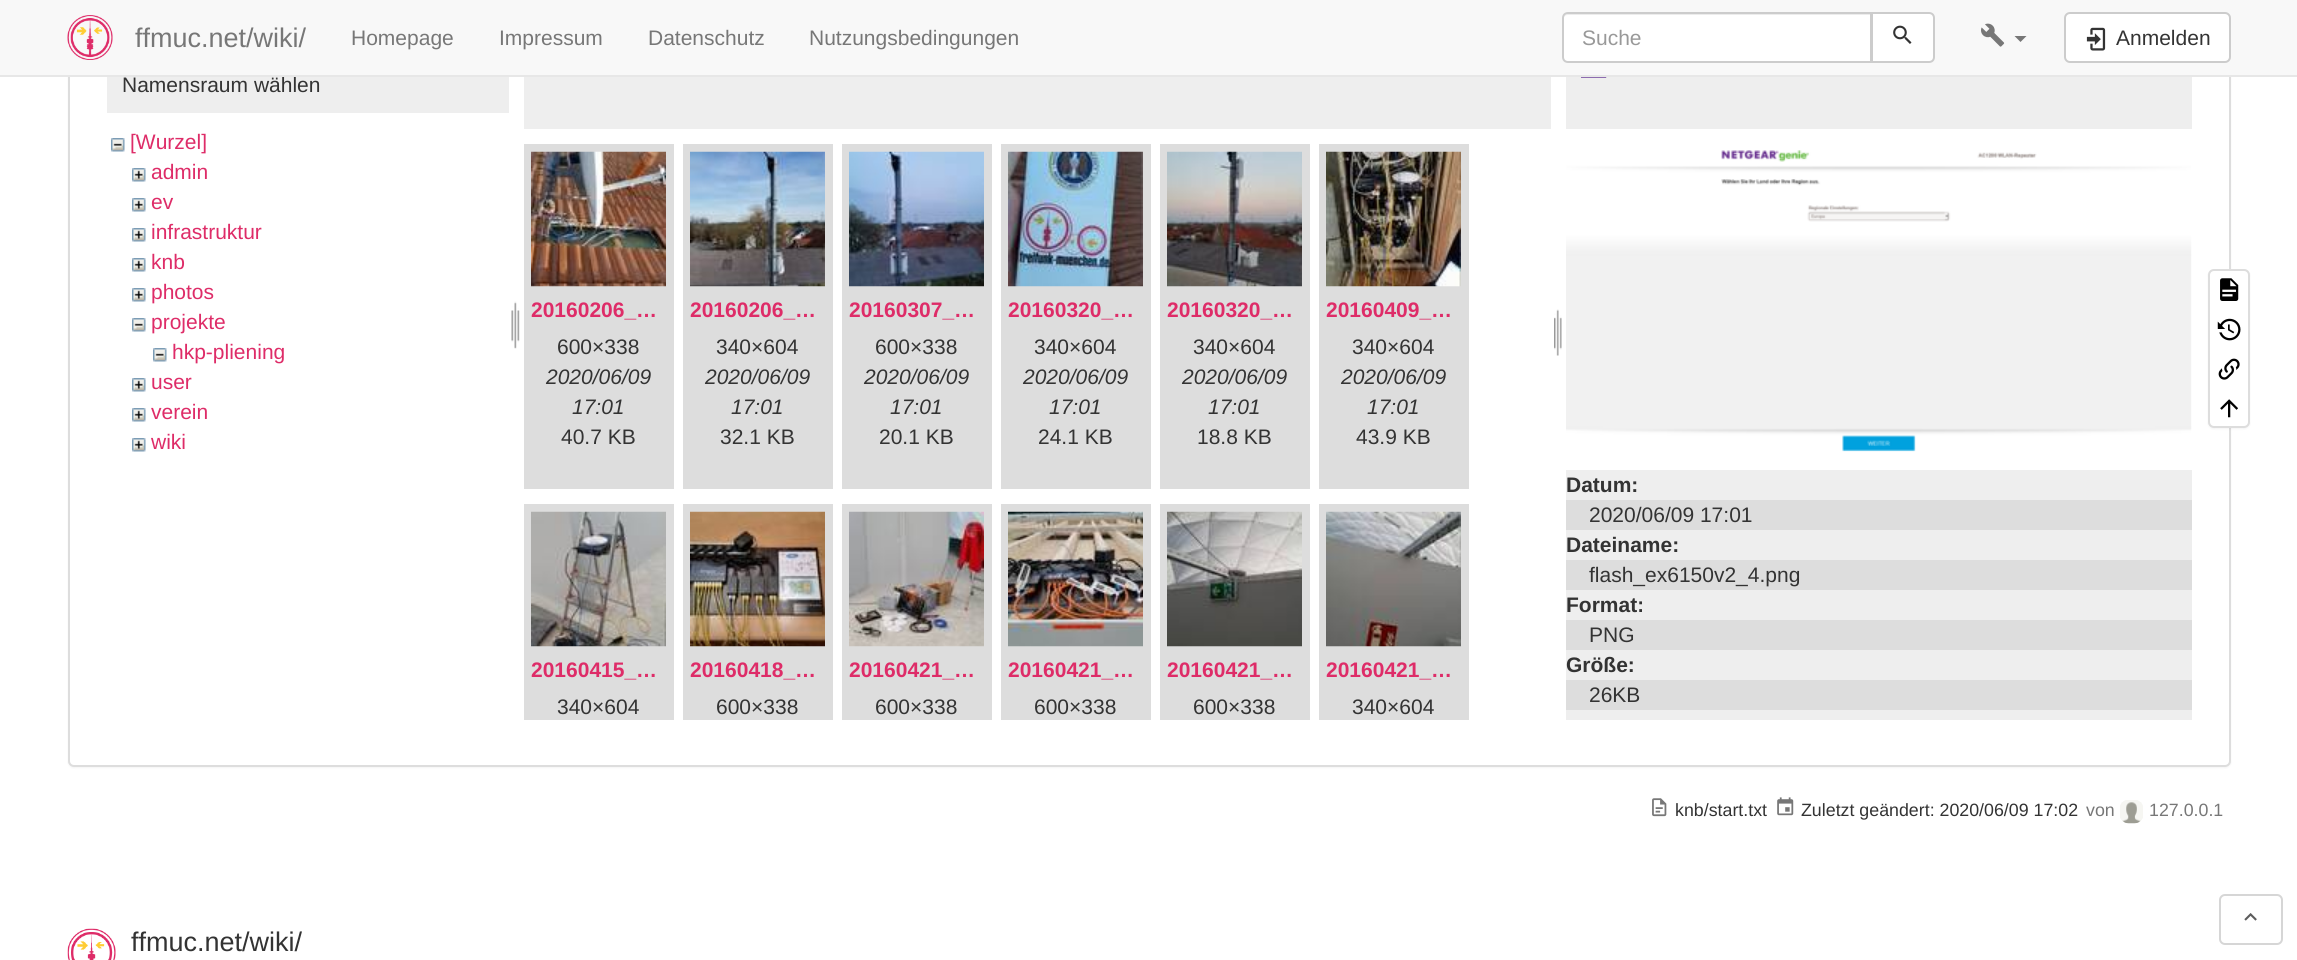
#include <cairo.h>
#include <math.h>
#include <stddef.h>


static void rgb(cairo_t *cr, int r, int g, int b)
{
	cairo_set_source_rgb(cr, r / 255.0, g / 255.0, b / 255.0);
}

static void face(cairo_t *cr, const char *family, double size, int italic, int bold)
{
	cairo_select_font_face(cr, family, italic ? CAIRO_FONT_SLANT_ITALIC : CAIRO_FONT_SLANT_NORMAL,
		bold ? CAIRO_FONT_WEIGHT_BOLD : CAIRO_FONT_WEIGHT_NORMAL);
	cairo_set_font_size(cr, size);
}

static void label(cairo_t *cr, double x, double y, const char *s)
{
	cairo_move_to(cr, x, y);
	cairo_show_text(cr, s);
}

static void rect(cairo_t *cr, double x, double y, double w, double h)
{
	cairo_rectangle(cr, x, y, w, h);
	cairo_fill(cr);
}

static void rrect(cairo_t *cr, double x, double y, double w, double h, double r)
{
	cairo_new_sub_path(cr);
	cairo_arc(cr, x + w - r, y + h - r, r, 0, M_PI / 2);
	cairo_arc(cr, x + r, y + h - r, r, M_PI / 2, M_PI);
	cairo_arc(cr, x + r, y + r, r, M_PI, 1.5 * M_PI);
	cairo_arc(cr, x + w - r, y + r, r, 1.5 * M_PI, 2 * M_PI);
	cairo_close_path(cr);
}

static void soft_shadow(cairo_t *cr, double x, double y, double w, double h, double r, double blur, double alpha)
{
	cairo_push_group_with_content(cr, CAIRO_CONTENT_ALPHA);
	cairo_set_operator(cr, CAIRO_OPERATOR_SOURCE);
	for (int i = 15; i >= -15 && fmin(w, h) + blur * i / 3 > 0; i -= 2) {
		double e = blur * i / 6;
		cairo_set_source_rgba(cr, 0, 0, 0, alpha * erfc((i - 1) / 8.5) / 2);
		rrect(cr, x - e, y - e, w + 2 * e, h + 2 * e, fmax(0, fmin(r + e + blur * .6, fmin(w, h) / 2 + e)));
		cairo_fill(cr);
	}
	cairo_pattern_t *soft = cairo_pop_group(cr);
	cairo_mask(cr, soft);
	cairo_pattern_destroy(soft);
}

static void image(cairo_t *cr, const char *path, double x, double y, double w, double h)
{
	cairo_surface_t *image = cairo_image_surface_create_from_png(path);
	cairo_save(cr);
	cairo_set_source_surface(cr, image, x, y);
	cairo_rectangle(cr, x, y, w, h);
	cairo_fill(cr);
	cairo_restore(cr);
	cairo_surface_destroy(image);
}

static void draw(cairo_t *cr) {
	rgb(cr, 255, 255, 255);
	cairo_paint(cr);
	rgb(cr, 0, 0, 0);
	soft_shadow(cr, 68, -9, 2163, 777, 6, 1, 0.05);
	rgb(cr, 255, 255, 255);
	rrect(cr, 69, -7, 2161, 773, 5);
	cairo_fill_preserve(cr);
	rgb(cr, 221, 221, 221);
	cairo_stroke(cr);
	rgb(cr, 248, 248, 248);
	rect(cr, 0, 0, 2297, 75);
	rgb(cr, 238, 238, 238);
	rect(cr, 107, 77, 402, 36);
	face(cr, "Liberation Sans", 21, 0, 0);
	rgb(cr, 51, 51, 51);
	label(cr, 122, 92, "Namensraum wählen");
	rgb(cr, 231, 231, 231);
	rect(cr, 0, 75, 2297, 2);
	image(cr, "image0.png", 67, 15, 46, 45);
	face(cr, "Liberation Sans", 27, 0, 0);
	rgb(cr, 119, 119, 119);
	label(cr, 135, 47, "ffmuc.net/wiki/");
	face(cr, "Liberation Sans", 21, 0, 0);
	label(cr, 351, 45, "Homepage");
	label(cr, 499, 45, "Impressum");
	label(cr, 648, 45, "Datenschutz");
	label(cr, 809, 45, "Nutzungsbedingungen");
	rgb(cr, 255, 255, 255);
	cairo_new_path(cr);
	cairo_move_to(cr, 1568, 12);
	cairo_line_to(cr, 1872, 12);
	cairo_line_to(cr, 1872, 63);
	cairo_line_to(cr, 1568, 63);
	cairo_curve_to(cr, 1564.5, 63, 1562, 60.5, 1562, 57);
	cairo_line_to(cr, 1562, 18);
	cairo_curve_to(cr, 1562, 14.5, 1564.5, 12, 1568, 12);
	cairo_close_path(cr);
	cairo_fill(cr);
	rgb(cr, 236, 236, 236);
	cairo_new_path(cr);
	cairo_move_to(cr, 1568, 15);
	cairo_line_to(cr, 1870, 15);
	cairo_line_to(cr, 1870, 62);
	cairo_line_to(cr, 1871, 62);
	cairo_line_to(cr, 1871, 14);
	cairo_line_to(cr, 1568, 14);
	cairo_curve_to(cr, 1565, 14, 1563, 17, 1563, 20);
	cairo_curve_to(cr, 1563, 17, 1565, 15, 1568, 15);
	cairo_close_path(cr);
	cairo_fill(cr);
	cairo_new_path(cr);
	cairo_move_to(cr, 1568, 13);
	cairo_line_to(cr, 1871, 13);
	cairo_line_to(cr, 1871, 62);
	cairo_line_to(cr, 1568, 62);
	cairo_curve_to(cr, 1565, 62, 1563, 60, 1563, 57);
	cairo_line_to(cr, 1563, 18);
	cairo_curve_to(cr, 1563, 15, 1565, 13, 1568, 13);
	cairo_close_path(cr);
	rgb(cr, 204, 204, 204);
	cairo_stroke(cr);
	rgb(cr, 153, 153, 153);
	label(cr, 1582, 45, "Suche");
	rgb(cr, 255, 255, 255);
	cairo_new_path(cr);
	cairo_move_to(cr, 1872, 13);
	cairo_line_to(cr, 1929, 13);
	cairo_curve_to(cr, 1932, 13, 1934, 15, 1934, 18);
	cairo_line_to(cr, 1934, 57);
	cairo_curve_to(cr, 1934, 60, 1932, 62, 1929, 62);
	cairo_line_to(cr, 1872, 62);
	cairo_close_path(cr);
	cairo_fill_preserve(cr);
	rgb(cr, 204, 204, 204);
	cairo_stroke(cr);
	image(cr, "image1.png", 1893, 25, 19, 19);
	image(cr, "image2.png", 1981, 23, 24, 24);
	rgb(cr, 119, 119, 119);
	cairo_new_path(cr);
	cairo_move_to(cr, 2014.5, 36);
	cairo_line_to(cr, 2026.5, 36);
	cairo_line_to(cr, 2020.5, 42);
	cairo_close_path(cr);
	cairo_fill(cr);
	rgb(cr, 255, 255, 255);
	rrect(cr, 2065, 13, 165, 49, 5);
	cairo_fill_preserve(cr);
	rgb(cr, 204, 204, 204);
	cairo_stroke(cr);
	image(cr, "image3.png", 2086, 27, 20, 24);
	rgb(cr, 51, 51, 51);
	label(cr, 2116, 45, "Anmelden");
	image(cr, "image4.png", 111, 138, 14, 14);
	rgb(cr, 222, 44, 104);
	label(cr, 130, 149, "[Wurzel]");
	image(cr, "image5.png", 132, 168, 14, 14);
	label(cr, 151, 179, "admin");
	image(cr, "image5.png", 132, 198, 14, 14);
	label(cr, 151, 209, "ev");
	image(cr, "image5.png", 132, 228, 14, 14);
	label(cr, 151, 239, "infrastruktur");
	image(cr, "image5.png", 132, 258, 14, 14);
	label(cr, 151, 269, "knb");
	image(cr, "image5.png", 132, 288, 14, 14);
	label(cr, 151, 299, "photos");
	image(cr, "image4.png", 132, 318, 14, 14);
	label(cr, 151, 329, "projekte");
	image(cr, "image4.png", 153, 348, 14, 14);
	label(cr, 172, 359, "hkp-pliening");
	image(cr, "image5.png", 132, 378, 14, 14);
	label(cr, 151, 389, "user");
	image(cr, "image5.png", 132, 408, 14, 14);
	label(cr, 151, 419, "verein");
	image(cr, "image5.png", 132, 438, 14, 14);
	label(cr, 151, 449, "wiki");
	image(cr, "image6.png", 511, 301, 9, 48);
	rgb(cr, 238, 238, 238);
	rect(cr, 524, 77, 1027, 52);
	rgb(cr, 221, 221, 221);
	rect(cr, 524, 144, 150, 345);
	image(cr, "image7.png", 531, 151, 135, 136);
	face(cr, "Liberation Sans", 21, 0, 1);
	rgb(cr, 222, 44, 104);
	label(cr, 531, 317, "20160206_…");
	face(cr, "Liberation Sans", 21, 0, 0);
	rgb(cr, 51, 51, 51);
	label(cr, 557, 354, "600×338");
	face(cr, "Liberation Sans", 21, 1, 0);
	label(cr, 546, 384, "2020/06/09");
	label(cr, 572, 414, "17:01");
	face(cr, "Liberation Sans", 21, 0, 0);
	label(cr, 561, 444, "40.7 KB");
	rgb(cr, 221, 221, 221);
	rect(cr, 683, 144, 150, 345);
	image(cr, "image8.png", 690, 151, 135, 136);
	face(cr, "Liberation Sans", 21, 0, 1);
	rgb(cr, 222, 44, 104);
	label(cr, 690, 317, "20160206_…");
	face(cr, "Liberation Sans", 21, 0, 0);
	rgb(cr, 51, 51, 51);
	label(cr, 716, 354, "340×604");
	face(cr, "Liberation Sans", 21, 1, 0);
	label(cr, 705, 384, "2020/06/09");
	label(cr, 731, 414, "17:01");
	face(cr, "Liberation Sans", 21, 0, 0);
	label(cr, 720, 444, "32.1 KB");
	rgb(cr, 221, 221, 221);
	rect(cr, 842, 144, 150, 345);
	image(cr, "image9.png", 849, 151, 135, 136);
	face(cr, "Liberation Sans", 21, 0, 1);
	rgb(cr, 222, 44, 104);
	label(cr, 849, 317, "20160307_…");
	face(cr, "Liberation Sans", 21, 0, 0);
	rgb(cr, 51, 51, 51);
	label(cr, 875, 354, "600×338");
	face(cr, "Liberation Sans", 21, 1, 0);
	label(cr, 864, 384, "2020/06/09");
	label(cr, 890, 414, "17:01");
	face(cr, "Liberation Sans", 21, 0, 0);
	label(cr, 879, 444, "20.1 KB");
	rgb(cr, 221, 221, 221);
	rect(cr, 1001, 144, 150, 345);
	image(cr, "image10.png", 1008, 151, 135, 136);
	face(cr, "Liberation Sans", 21, 0, 1);
	rgb(cr, 222, 44, 104);
	label(cr, 1008, 317, "20160320_…");
	face(cr, "Liberation Sans", 21, 0, 0);
	rgb(cr, 51, 51, 51);
	label(cr, 1034, 354, "340×604");
	face(cr, "Liberation Sans", 21, 1, 0);
	label(cr, 1023, 384, "2020/06/09");
	label(cr, 1049, 414, "17:01");
	face(cr, "Liberation Sans", 21, 0, 0);
	label(cr, 1038, 444, "24.1 KB");
	rgb(cr, 221, 221, 221);
	rect(cr, 1160, 144, 150, 345);
	image(cr, "image11.png", 1167, 151, 135, 136);
	face(cr, "Liberation Sans", 21, 0, 1);
	rgb(cr, 222, 44, 104);
	label(cr, 1167, 317, "20160320_…");
	face(cr, "Liberation Sans", 21, 0, 0);
	rgb(cr, 51, 51, 51);
	label(cr, 1193, 354, "340×604");
	face(cr, "Liberation Sans", 21, 1, 0);
	label(cr, 1182, 384, "2020/06/09");
	label(cr, 1208, 414, "17:01");
	face(cr, "Liberation Sans", 21, 0, 0);
	label(cr, 1197, 444, "18.8 KB");
	rgb(cr, 221, 221, 221);
	rect(cr, 1319, 144, 150, 345);
	image(cr, "image12.png", 1326, 151, 135, 136);
	face(cr, "Liberation Sans", 21, 0, 1);
	rgb(cr, 222, 44, 104);
	label(cr, 1326, 317, "20160409_…");
	face(cr, "Liberation Sans", 21, 0, 0);
	rgb(cr, 51, 51, 51);
	label(cr, 1352, 354, "340×604");
	face(cr, "Liberation Sans", 21, 1, 0);
	label(cr, 1341, 384, "2020/06/09");
	label(cr, 1367, 414, "17:01");
	face(cr, "Liberation Sans", 21, 0, 0);
	label(cr, 1356, 444, "43.9 KB");
	rgb(cr, 221, 221, 221);
	rect(cr, 524, 504, 150, 216);
	image(cr, "image13.png", 531, 511, 135, 136);
	face(cr, "Liberation Sans", 21, 0, 1);
	rgb(cr, 222, 44, 104);
	label(cr, 531, 677, "20160415_…");
	face(cr, "Liberation Sans", 21, 0, 0);
	rgb(cr, 51, 51, 51);
	label(cr, 557, 714, "340×604");
	rgb(cr, 221, 221, 221);
	rect(cr, 683, 504, 150, 216);
	image(cr, "image14.png", 690, 511, 135, 136);
	face(cr, "Liberation Sans", 21, 0, 1);
	rgb(cr, 222, 44, 104);
	label(cr, 690, 677, "20160418_…");
	face(cr, "Liberation Sans", 21, 0, 0);
	rgb(cr, 51, 51, 51);
	label(cr, 716, 714, "600×338");
	rgb(cr, 221, 221, 221);
	rect(cr, 842, 504, 150, 216);
	image(cr, "image15.png", 849, 511, 135, 136);
	face(cr, "Liberation Sans", 21, 0, 1);
	rgb(cr, 222, 44, 104);
	label(cr, 849, 677, "20160421_…");
	face(cr, "Liberation Sans", 21, 0, 0);
	rgb(cr, 51, 51, 51);
	label(cr, 875, 714, "600×338");
	rgb(cr, 221, 221, 221);
	rect(cr, 1001, 504, 150, 216);
	image(cr, "image16.png", 1008, 511, 135, 136);
	face(cr, "Liberation Sans", 21, 0, 1);
	rgb(cr, 222, 44, 104);
	label(cr, 1008, 677, "20160421_…");
	face(cr, "Liberation Sans", 21, 0, 0);
	rgb(cr, 51, 51, 51);
	label(cr, 1034, 714, "600×338");
	rgb(cr, 221, 221, 221);
	rect(cr, 1160, 504, 150, 216);
	image(cr, "image17.png", 1167, 511, 135, 136);
	face(cr, "Liberation Sans", 21, 0, 1);
	rgb(cr, 222, 44, 104);
	label(cr, 1167, 677, "20160421_…");
	face(cr, "Liberation Sans", 21, 0, 0);
	rgb(cr, 51, 51, 51);
	label(cr, 1193, 714, "600×338");
	rgb(cr, 221, 221, 221);
	rect(cr, 1319, 504, 150, 216);
	image(cr, "image18.png", 1326, 511, 135, 136);
	face(cr, "Liberation Sans", 21, 0, 1);
	rgb(cr, 222, 44, 104);
	label(cr, 1326, 677, "20160421_…");
	face(cr, "Liberation Sans", 21, 0, 0);
	rgb(cr, 51, 51, 51);
	label(cr, 1352, 714, "340×604");
	image(cr, "image19.png", 1554, 309, 8, 47);
	rgb(cr, 238, 238, 238);
	rect(cr, 1566, 77, 626, 52);
	image(cr, "image20.png", 1581, 77, 26, 1);
	image(cr, "image21.png", 1566, 150, 626, 302);
	rect(cr, 1566, 470, 626, 30);
	face(cr, "Liberation Sans", 21, 0, 1);
	rgb(cr, 51, 51, 51);
	label(cr, 1566, 492, "Datum:");
	rgb(cr, 221, 221, 221);
	rect(cr, 1566, 500, 626, 30);
	face(cr, "Liberation Sans", 21, 0, 0);
	rgb(cr, 51, 51, 51);
	label(cr, 1589, 522, "2020/06/09 17:01");
	rgb(cr, 238, 238, 238);
	rect(cr, 1566, 530, 626, 30);
	face(cr, "Liberation Sans", 21, 0, 1);
	rgb(cr, 51, 51, 51);
	label(cr, 1566, 552, "Dateiname:");
	rgb(cr, 221, 221, 221);
	rect(cr, 1566, 560, 626, 30);
	face(cr, "Liberation Sans", 21, 0, 0);
	rgb(cr, 51, 51, 51);
	label(cr, 1589, 582, "flash_ex6150v2_4.png");
	rgb(cr, 238, 238, 238);
	rect(cr, 1566, 590, 626, 30);
	face(cr, "Liberation Sans", 21, 0, 1);
	rgb(cr, 51, 51, 51);
	label(cr, 1566, 612, "Format:");
	rgb(cr, 221, 221, 221);
	rect(cr, 1566, 620, 626, 30);
	face(cr, "Liberation Sans", 21, 0, 0);
	rgb(cr, 51, 51, 51);
	label(cr, 1589, 642, "PNG");
	rgb(cr, 238, 238, 238);
	rect(cr, 1566, 650, 626, 30);
	face(cr, "Liberation Sans", 21, 0, 1);
	rgb(cr, 51, 51, 51);
	label(cr, 1566, 672, "Größe:");
	rgb(cr, 221, 221, 221);
	rect(cr, 1566, 680, 626, 30);
	face(cr, "Liberation Sans", 21, 0, 0);
	rgb(cr, 51, 51, 51);
	label(cr, 1589, 702, "26KB");
	rgb(cr, 238, 238, 238);
	rect(cr, 1566, 710, 626, 10);
	rgb(cr, 0, 0, 0);
	soft_shadow(cr, 2208, 270, 42, 159, 6, 1, 0.05);
	rgb(cr, 255, 255, 255);
	rrect(cr, 2209, 270, 40, 157, 5);
	cairo_fill_preserve(cr);
	rgb(cr, 221, 221, 221);
	cairo_stroke(cr);
	image(cr, "image22.png", 2220, 278, 19, 23);
	image(cr, "image23.png", 2217, 318, 24, 23);
	image(cr, "image24.png", 2218, 358, 22, 22);
	image(cr, "image25.png", 2220, 399, 18, 19);
	image(cr, "image26.png", 1652, 798, 15, 19);
	face(cr, "Liberation Sans", 17.8, 0, 0);
	rgb(cr, 51, 51, 51);
	label(cr, 1675, 816, "knb/start.txt");
	image(cr, "image27.png", 1777, 797, 17, 19);
	label(cr, 1801, 816, "Zuletzt geändert: 2020/06/09 17:02");
	rgb(cr, 119, 119, 119);
	label(cr, 2086, 816, "von");
	image(cr, "image28.png", 2120, 800, 23, 24);
	label(cr, 2149, 816, "127.0.0.1");
	image(cr, "image29.png", 67, 928, 49, 32);
	face(cr, "Liberation Sans", 27, 0, 0);
	rgb(cr, 51, 51, 51);
	label(cr, 131, 951, "ffmuc.net/wiki/");
	rrect(cr, 2220, 895, 62, 49, 5);
	rgb(cr, 214, 214, 214);
	cairo_stroke(cr);
	image(cr, "image30.png", 2244, 913, 13, 8);
}

int main(void) {
	cairo_surface_t *surface = cairo_image_surface_create(CAIRO_FORMAT_RGB24, 2297, 960);
	cairo_t *cr = cairo_create(surface);
	cairo_font_options_t *options = cairo_font_options_create();
	cairo_font_options_set_hint_metrics(options, CAIRO_HINT_METRICS_OFF);
	cairo_font_options_set_hint_style(options, CAIRO_HINT_STYLE_NONE);
	cairo_set_font_options(cr, options);
	cairo_set_miter_limit(cr, 4);
	draw(cr);
	cairo_surface_write_to_png(surface, "render.png");
	cairo_font_options_destroy(options);
	cairo_destroy(cr);
	cairo_surface_destroy(surface);
	return 0;
}
